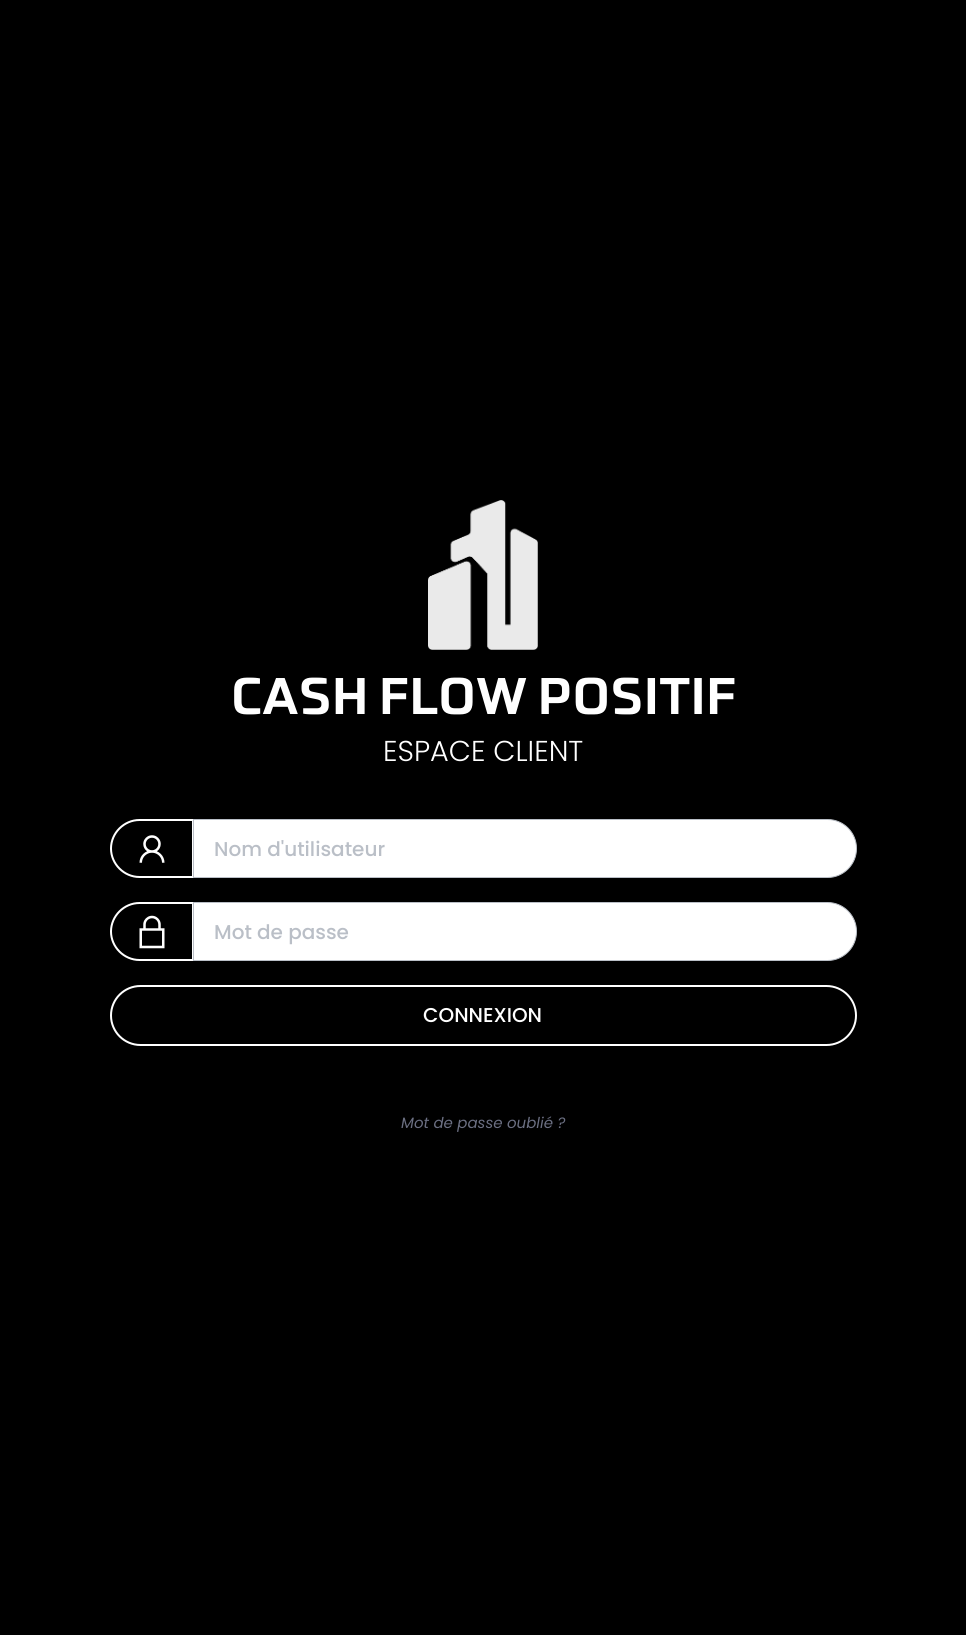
#include <cairo.h>
#include <math.h>
#include <stddef.h>


static void rgb(cairo_t *cr, int r, int g, int b)
{
	cairo_set_source_rgb(cr, r / 255.0, g / 255.0, b / 255.0);
}

static void face(cairo_t *cr, const char *family, double size, int italic, int bold)
{
	cairo_select_font_face(cr, family, italic ? CAIRO_FONT_SLANT_ITALIC : CAIRO_FONT_SLANT_NORMAL,
		bold ? CAIRO_FONT_WEIGHT_BOLD : CAIRO_FONT_WEIGHT_NORMAL);
	cairo_set_font_size(cr, size);
}

static void label(cairo_t *cr, double x, double y, const char *s)
{
	cairo_move_to(cr, x, y);
	cairo_show_text(cr, s);
}

static void rrect(cairo_t *cr, double x, double y, double w, double h, double r)
{
	cairo_new_sub_path(cr);
	cairo_arc(cr, x + w - r, y + h - r, r, 0, M_PI / 2);
	cairo_arc(cr, x + r, y + h - r, r, M_PI / 2, M_PI);
	cairo_arc(cr, x + r, y + r, r, M_PI, 1.5 * M_PI);
	cairo_arc(cr, x + w - r, y + r, r, 1.5 * M_PI, 2 * M_PI);
	cairo_close_path(cr);
}

static void image(cairo_t *cr, const char *path, double x, double y, double w, double h)
{
	cairo_surface_t *image = cairo_image_surface_create_from_png(path);
	cairo_save(cr);
	cairo_set_source_surface(cr, image, x, y);
	cairo_rectangle(cr, x, y, w, h);
	cairo_fill(cr);
	cairo_restore(cr);
	cairo_surface_destroy(image);
}

static void draw(cairo_t *cr) {
	rgb(cr, 0, 0, 0);
	cairo_paint(cr);
	image(cr, "image0.png", 428, 500, 110, 150);
	face(cr, "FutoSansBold", 51.25, 0, 1);
	rgb(cr, 255, 255, 255);
	label(cr, 231, 714, "CASH FLOW POSITIF");
	face(cr, "Poppins Light", 28.75, 0, 0);
	label(cr, 383, 761, "ESPACE CLIENT");
	cairo_new_path(cr);
	cairo_move_to(cr, 139.5, 820);
	cairo_line_to(cr, 193, 820);
	cairo_line_to(cr, 193, 877);
	cairo_line_to(cr, 139.5, 877);
	cairo_curve_to(cr, 124, 877, 111, 864, 111, 848.5);
	cairo_curve_to(cr, 111, 833, 124, 820, 139.5, 820);
	cairo_close_path(cr);
	cairo_stroke(cr);
	image(cr, "image1.png", 139, 835, 26, 28);
	cairo_new_path(cr);
	cairo_move_to(cr, 193.5, 819.5);
	cairo_line_to(cr, 827.5, 819.5);
	cairo_curve_to(cr, 843.5, 819.5, 856.5, 832.5, 856.5, 848.5);
	cairo_curve_to(cr, 856.5, 864.5, 843.5, 877.5, 827.5, 877.5);
	cairo_line_to(cr, 193.5, 877.5);
	cairo_close_path(cr);
	cairo_fill_preserve(cr);
	rgb(cr, 186, 191, 199);
	cairo_set_line_width(cr, 1);
	cairo_stroke(cr);
	face(cr, "Poppins Medium", 20, 0, 0);
	label(cr, 214, 856, "Nom d'utilisateur");
	cairo_new_path(cr);
	cairo_move_to(cr, 139.5, 903);
	cairo_line_to(cr, 193, 903);
	cairo_line_to(cr, 193, 960);
	cairo_line_to(cr, 139.5, 960);
	cairo_curve_to(cr, 124, 960, 111, 947, 111, 931.5);
	cairo_curve_to(cr, 111, 916, 124, 903, 139.5, 903);
	cairo_close_path(cr);
	rgb(cr, 255, 255, 255);
	cairo_set_line_width(cr, 2);
	cairo_stroke(cr);
	image(cr, "image2.png", 139, 915, 26, 34);
	cairo_new_path(cr);
	cairo_move_to(cr, 193.5, 902.5);
	cairo_line_to(cr, 827.5, 902.5);
	cairo_curve_to(cr, 843.5, 902.5, 856.5, 915.5, 856.5, 931.5);
	cairo_curve_to(cr, 856.5, 947.5, 843.5, 960.5, 827.5, 960.5);
	cairo_line_to(cr, 193.5, 960.5);
	cairo_close_path(cr);
	cairo_fill_preserve(cr);
	rgb(cr, 186, 191, 199);
	cairo_set_line_width(cr, 1);
	cairo_stroke(cr);
	label(cr, 214, 939, "Mot de passe");
	rrect(cr, 111, 986, 745, 59, 29.5);
	rgb(cr, 255, 255, 255);
	cairo_set_line_width(cr, 2);
	cairo_stroke(cr);
	label(cr, 423, 1022, "CONNEXION");
	face(cr, "Poppins", 15, 1, 0);
	rgb(cr, 107, 111, 130);
	label(cr, 401, 1128, "Mot de passe oublié ?");
}

int main(void) {
	cairo_surface_t *surface = cairo_image_surface_create(CAIRO_FORMAT_RGB24, 966, 1635);
	cairo_t *cr = cairo_create(surface);
	cairo_font_options_t *options = cairo_font_options_create();
	cairo_font_options_set_hint_metrics(options, CAIRO_HINT_METRICS_OFF);
	cairo_font_options_set_hint_style(options, CAIRO_HINT_STYLE_NONE);
	cairo_set_font_options(cr, options);
	cairo_set_miter_limit(cr, 4);
	draw(cr);
	cairo_surface_write_to_png(surface, "render.png");
	cairo_font_options_destroy(options);
	cairo_destroy(cr);
	cairo_surface_destroy(surface);
	return 0;
}
